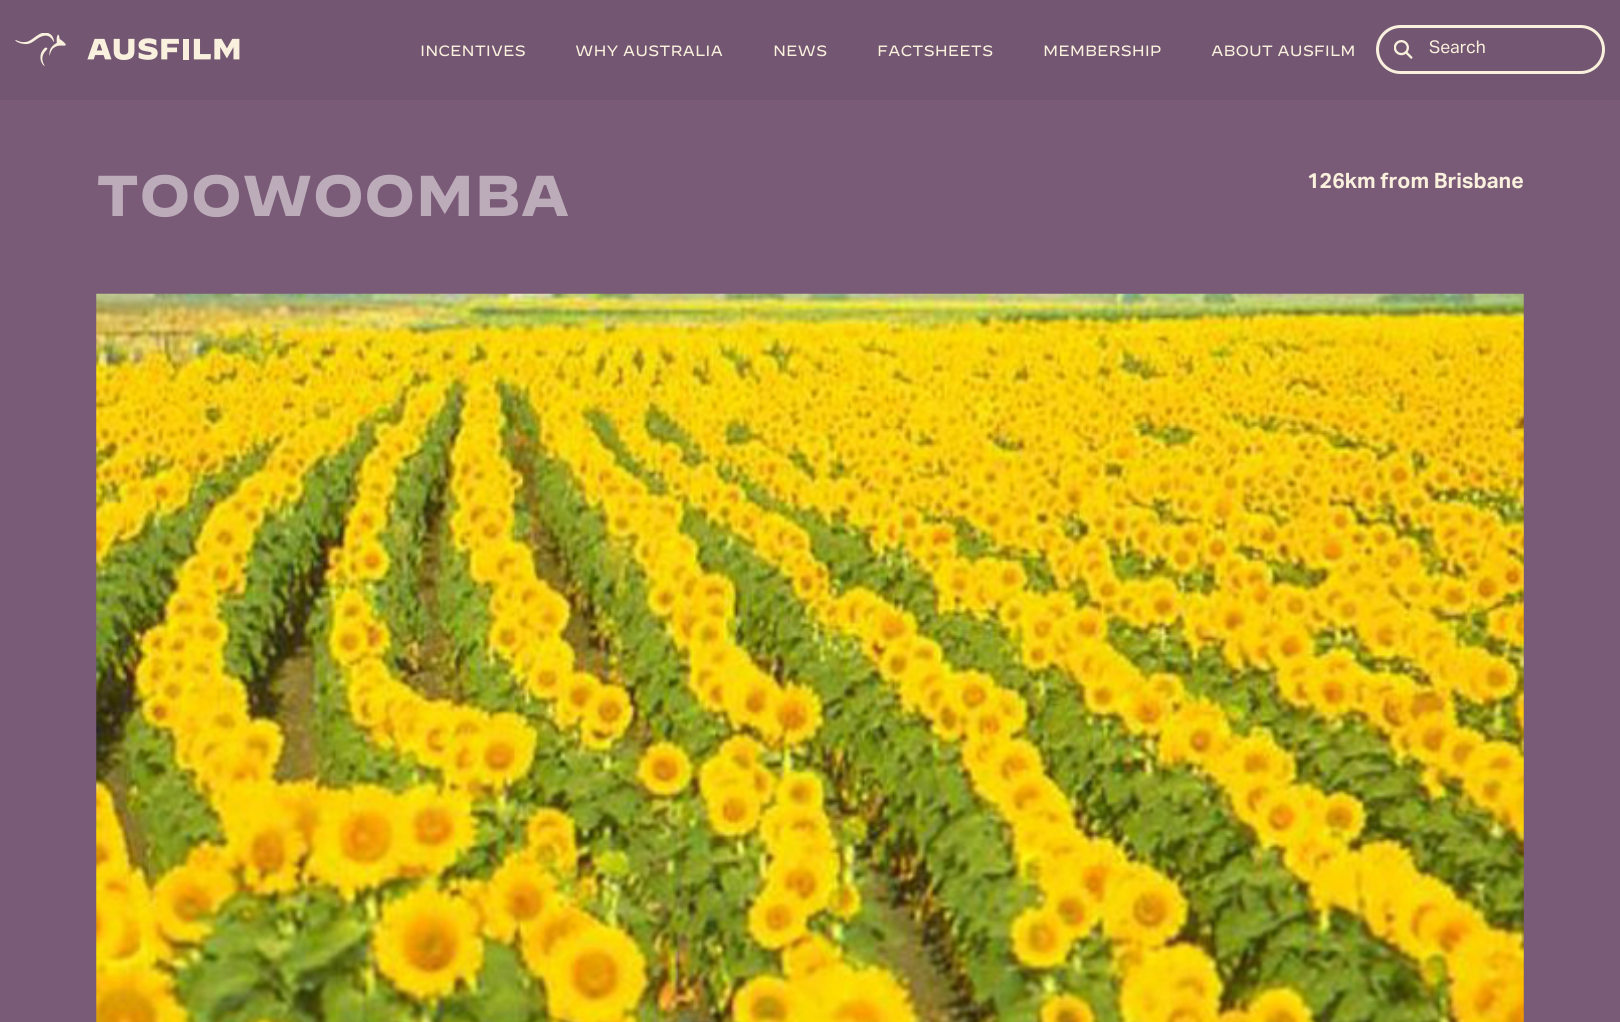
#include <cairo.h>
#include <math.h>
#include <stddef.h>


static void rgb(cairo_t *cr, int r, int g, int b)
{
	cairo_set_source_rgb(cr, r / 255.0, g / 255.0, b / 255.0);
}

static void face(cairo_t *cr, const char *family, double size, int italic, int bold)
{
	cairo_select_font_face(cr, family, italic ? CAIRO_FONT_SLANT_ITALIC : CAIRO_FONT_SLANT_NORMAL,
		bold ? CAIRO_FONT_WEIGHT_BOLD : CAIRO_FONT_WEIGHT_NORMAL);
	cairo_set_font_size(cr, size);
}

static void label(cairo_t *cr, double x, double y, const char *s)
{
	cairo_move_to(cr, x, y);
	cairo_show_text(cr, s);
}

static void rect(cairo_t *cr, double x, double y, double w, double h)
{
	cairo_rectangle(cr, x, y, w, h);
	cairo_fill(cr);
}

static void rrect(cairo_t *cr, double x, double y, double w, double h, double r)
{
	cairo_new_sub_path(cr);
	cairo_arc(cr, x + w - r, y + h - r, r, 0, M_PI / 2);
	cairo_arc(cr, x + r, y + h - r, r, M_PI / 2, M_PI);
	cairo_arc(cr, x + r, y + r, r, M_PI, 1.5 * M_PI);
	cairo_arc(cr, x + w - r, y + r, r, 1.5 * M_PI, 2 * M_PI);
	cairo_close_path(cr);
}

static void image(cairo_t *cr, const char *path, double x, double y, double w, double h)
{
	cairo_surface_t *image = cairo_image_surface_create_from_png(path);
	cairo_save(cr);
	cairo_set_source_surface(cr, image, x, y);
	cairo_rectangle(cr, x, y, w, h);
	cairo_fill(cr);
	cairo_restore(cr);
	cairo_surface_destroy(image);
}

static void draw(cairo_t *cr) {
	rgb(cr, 121, 90, 119);
	cairo_paint(cr);
	rgb(cr, 115, 86, 113);
	rect(cr, 0, 0, 1620, 100);
	image(cr, "image0.png", 15, 33, 225, 33);
	face(cr, "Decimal", 14.9, 0, 0);
	rgb(cr, 249, 240, 221);
	label(cr, 420, 56, "INCENTIVES");
	label(cr, 575, 56, "WHY AUSTRALIA");
	label(cr, 773, 56, "NEWS");
	label(cr, 877, 56, "FACTSHEETS");
	label(cr, 1043, 56, "MEMBERSHIP");
	label(cr, 1211, 56, "ABOUT AUSFILM");
	rrect(cr, 1377.5, 26.5, 226, 46, 23);
	cairo_set_line_width(cr, 3);
	cairo_stroke(cr);
	image(cr, "image1.png", 1394, 40, 19, 19);
	face(cr, "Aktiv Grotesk", 17.5, 0, 0);
	label(cr, 1429, 53, "Search");
	face(cr, "Decimal", 57.5, 0, 1);
	rgb(cr, 188, 172, 185);
	label(cr, 96, 216, "TOOWOOMBA");
	face(cr, "Aktiv Grotesk", 21.25, 0, 1);
	rgb(cr, 249, 240, 221);
	label(cr, 1307, 188, "126km from Brisbane");
	image(cr, "image2.png", 96, 293, 1428, 729);
}

int main(void) {
	cairo_surface_t *surface = cairo_image_surface_create(CAIRO_FORMAT_RGB24, 1620, 1022);
	cairo_t *cr = cairo_create(surface);
	cairo_font_options_t *options = cairo_font_options_create();
	cairo_font_options_set_hint_metrics(options, CAIRO_HINT_METRICS_OFF);
	cairo_font_options_set_hint_style(options, CAIRO_HINT_STYLE_NONE);
	cairo_set_font_options(cr, options);
	cairo_set_miter_limit(cr, 4);
	draw(cr);
	cairo_surface_write_to_png(surface, "render.png");
	cairo_font_options_destroy(options);
	cairo_destroy(cr);
	cairo_surface_destroy(surface);
	return 0;
}
